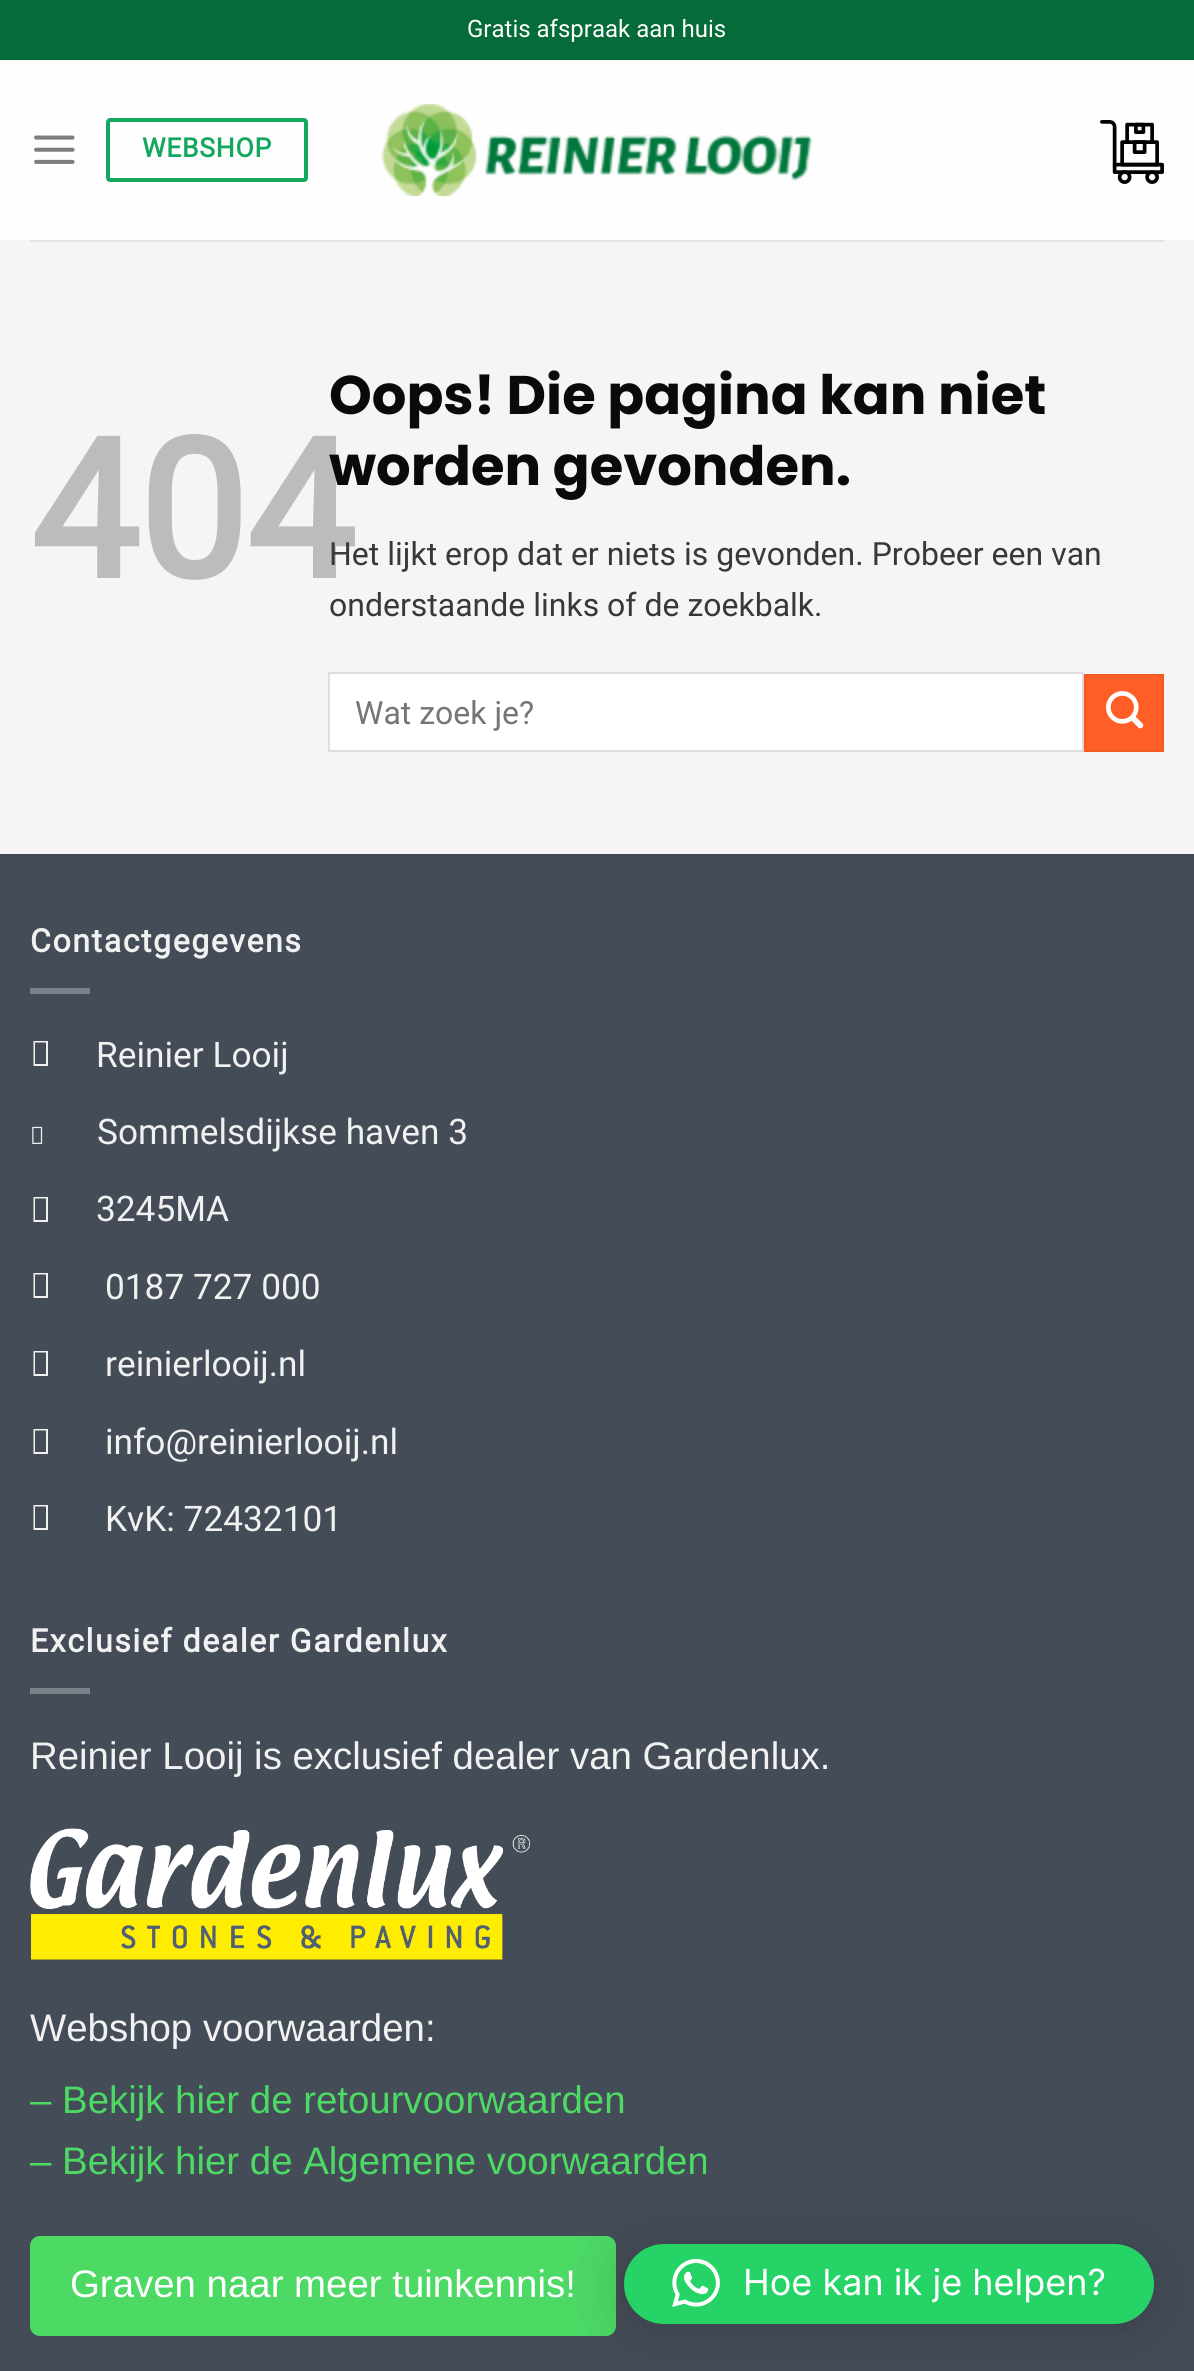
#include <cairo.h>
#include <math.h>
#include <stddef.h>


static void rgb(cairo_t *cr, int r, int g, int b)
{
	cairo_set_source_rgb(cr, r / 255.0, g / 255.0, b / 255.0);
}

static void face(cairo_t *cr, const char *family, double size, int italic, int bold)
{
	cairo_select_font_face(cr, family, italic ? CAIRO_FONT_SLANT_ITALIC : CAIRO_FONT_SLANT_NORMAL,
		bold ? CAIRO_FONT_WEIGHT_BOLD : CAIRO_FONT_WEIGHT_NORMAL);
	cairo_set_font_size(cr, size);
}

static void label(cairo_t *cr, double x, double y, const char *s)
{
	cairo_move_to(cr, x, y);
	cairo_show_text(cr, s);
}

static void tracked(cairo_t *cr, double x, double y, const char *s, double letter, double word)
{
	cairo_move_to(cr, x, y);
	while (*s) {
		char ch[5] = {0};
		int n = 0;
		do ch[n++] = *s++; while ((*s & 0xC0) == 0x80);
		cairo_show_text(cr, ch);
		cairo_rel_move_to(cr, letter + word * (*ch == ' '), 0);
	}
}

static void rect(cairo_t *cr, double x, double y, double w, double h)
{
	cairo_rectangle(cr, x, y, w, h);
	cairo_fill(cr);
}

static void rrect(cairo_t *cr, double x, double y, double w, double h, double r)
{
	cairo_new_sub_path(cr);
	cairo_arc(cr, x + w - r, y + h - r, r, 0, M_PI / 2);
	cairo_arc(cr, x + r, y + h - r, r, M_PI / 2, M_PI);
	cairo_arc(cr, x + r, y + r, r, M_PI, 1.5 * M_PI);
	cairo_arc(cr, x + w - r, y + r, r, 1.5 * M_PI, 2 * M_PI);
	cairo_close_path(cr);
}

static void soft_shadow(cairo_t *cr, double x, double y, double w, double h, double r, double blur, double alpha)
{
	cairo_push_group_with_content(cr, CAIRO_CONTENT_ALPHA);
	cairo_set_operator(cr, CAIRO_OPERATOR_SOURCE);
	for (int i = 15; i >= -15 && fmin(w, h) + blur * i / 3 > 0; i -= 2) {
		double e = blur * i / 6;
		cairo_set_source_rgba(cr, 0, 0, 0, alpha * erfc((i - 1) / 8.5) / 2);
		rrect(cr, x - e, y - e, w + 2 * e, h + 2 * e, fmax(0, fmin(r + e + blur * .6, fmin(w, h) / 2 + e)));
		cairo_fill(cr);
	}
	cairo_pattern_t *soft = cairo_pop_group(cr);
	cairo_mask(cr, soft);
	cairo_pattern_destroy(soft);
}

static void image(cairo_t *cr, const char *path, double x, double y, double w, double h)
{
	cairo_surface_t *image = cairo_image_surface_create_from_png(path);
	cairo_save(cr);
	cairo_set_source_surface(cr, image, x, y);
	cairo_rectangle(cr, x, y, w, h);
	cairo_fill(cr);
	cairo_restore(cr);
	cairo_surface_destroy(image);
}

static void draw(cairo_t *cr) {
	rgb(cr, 245, 245, 245);
	cairo_paint(cr);
	rgb(cr, 5, 107, 56);
	rect(cr, 0, 0, 1194, 60);
	face(cr, "Roboto", 24, 0, 0);
	rgb(cr, 255, 255, 255);
	label(cr, 467, 37, "Gratis afspraak aan huis");
	rgb(cr, 254, 254, 254);
	rect(cr, 0, 60, 1194, 180);
	image(cr, "image0.png", 34, 135, 41, 29);
	rrect(cr, 108, 120, 198, 60, 2);
	rgb(cr, 19, 168, 94);
	cairo_set_line_width(cr, 4);
	cairo_stroke(cr);
	face(cr, "Roboto", 26.5, 0, 1);
	tracked(cr, 142, 157, "WEBSHOP", 0.75, 0);
	image(cr, "image1.png", 381, 104, 432, 92);
	image(cr, "image2.png", 1100, 120, 64, 64);
	rgb(cr, 226, 226, 226);
	rect(cr, 30, 240, 1134, 2);
	face(cr, "Roboto", 192, 0, 1);
	rgb(cr, 188, 188, 188);
	label(cr, 30, 578, "404");
	face(cr, "Poppins", 54.4, 0, 1);
	rgb(cr, 10, 10, 10);
	label(cr, 329, 414, "Oops! Die pagina kan niet");
	label(cr, 329, 485, "worden gevonden.");
	face(cr, "Roboto", 32, 0, 0);
	rgb(cr, 56, 56, 56);
	label(cr, 329, 565, "Het lijkt erop dat er niets is gevonden. Probeer een van");
	label(cr, 329, 616, "onderstaande links of de zoekbalk.");
	rgb(cr, 255, 255, 255);
	cairo_rectangle(cr, 329, 673, 754, 78);
	cairo_fill_preserve(cr);
	rgb(cr, 221, 221, 221);
	cairo_set_line_width(cr, 2);
	cairo_stroke(cr);
	rgb(cr, 117, 117, 117);
	label(cr, 355, 724, "Wat zoek je?");
	rgb(cr, 255, 94, 38);
	cairo_rectangle(cr, 1085, 675, 78, 76);
	cairo_fill_preserve(cr);
	rgb(cr, 242, 89, 36);
	cairo_stroke(cr);
	image(cr, "image3.png", 1106, 691, 38, 38);
	rgb(cr, 68, 76, 87);
	rect(cr, 0, 856, 1194, 1515);
	rgb(cr, 65, 72, 83);
	rect(cr, 0, 854, 1194, 2);
	face(cr, "Roboto", 32, 0, 1);
	rgb(cr, 241, 241, 241);
	tracked(cr, 30, 952, "Contactgegevens", 1.6, 0);
	rgb(cr, 124, 130, 137);
	rect(cr, 30, 988, 60, 6);
	rgb(cr, 241, 241, 241);
	cairo_new_path(cr);
	cairo_move_to(cr, 33.5, 1066);
	cairo_line_to(cr, 33.5, 1041);
	cairo_line_to(cr, 48, 1041);
	cairo_line_to(cr, 48, 1066);
	cairo_close_path(cr);
	cairo_move_to(cr, 35, 1064);
	cairo_line_to(cr, 46, 1064);
	cairo_line_to(cr, 46, 1042.5);
	cairo_line_to(cr, 35, 1042.5);
	cairo_close_path(cr);
	cairo_fill(cr);
	face(cr, "Roboto", 35.25, 0, 0);
	label(cr, 96, 1067, "Reinier Looij");
	image(cr, "image4.png", 32, 1126, 11, 18);
	label(cr, 97, 1144, "Sommelsdijkse haven 3");
	cairo_new_path(cr);
	cairo_move_to(cr, 33.5, 1222);
	cairo_line_to(cr, 33.5, 1197);
	cairo_line_to(cr, 48, 1197);
	cairo_line_to(cr, 48, 1222);
	cairo_close_path(cr);
	cairo_move_to(cr, 35, 1220);
	cairo_line_to(cr, 46, 1220);
	cairo_line_to(cr, 46, 1198.5);
	cairo_line_to(cr, 35, 1198.5);
	cairo_close_path(cr);
	cairo_fill(cr);
	label(cr, 96, 1221, "3245MA");
	cairo_new_path(cr);
	cairo_move_to(cr, 33.5, 1298);
	cairo_line_to(cr, 33.5, 1273);
	cairo_line_to(cr, 48, 1273);
	cairo_line_to(cr, 48, 1298);
	cairo_close_path(cr);
	cairo_move_to(cr, 35, 1296);
	cairo_line_to(cr, 46, 1296);
	cairo_line_to(cr, 46, 1274.5);
	cairo_line_to(cr, 35, 1274.5);
	cairo_close_path(cr);
	cairo_fill(cr);
	label(cr, 105, 1299, "0187 727 000");
	cairo_new_path(cr);
	cairo_move_to(cr, 33.5, 1376);
	cairo_line_to(cr, 33.5, 1351);
	cairo_line_to(cr, 48, 1351);
	cairo_line_to(cr, 48, 1376);
	cairo_close_path(cr);
	cairo_move_to(cr, 35, 1374);
	cairo_line_to(cr, 46, 1374);
	cairo_line_to(cr, 46, 1352.5);
	cairo_line_to(cr, 35, 1352.5);
	cairo_close_path(cr);
	cairo_fill(cr);
	label(cr, 105, 1376, "reinierlooij.nl");
	cairo_new_path(cr);
	cairo_move_to(cr, 33.5, 1454);
	cairo_line_to(cr, 33.5, 1429);
	cairo_line_to(cr, 48, 1429);
	cairo_line_to(cr, 48, 1454);
	cairo_close_path(cr);
	cairo_move_to(cr, 35, 1452);
	cairo_line_to(cr, 46, 1452);
	cairo_line_to(cr, 46, 1430.5);
	cairo_line_to(cr, 35, 1430.5);
	cairo_close_path(cr);
	cairo_fill(cr);
	label(cr, 105, 1454, "info@reinierlooij.nl");
	cairo_new_path(cr);
	cairo_move_to(cr, 33.5, 1530);
	cairo_line_to(cr, 33.5, 1505);
	cairo_line_to(cr, 48, 1505);
	cairo_line_to(cr, 48, 1530);
	cairo_close_path(cr);
	cairo_move_to(cr, 35, 1528);
	cairo_line_to(cr, 46, 1528);
	cairo_line_to(cr, 46, 1506.5);
	cairo_line_to(cr, 35, 1506.5);
	cairo_close_path(cr);
	cairo_fill(cr);
	label(cr, 105, 1531, "KvK: 72432101");
	face(cr, "Roboto", 32, 0, 1);
	tracked(cr, 30, 1652, "Exclusief dealer Gardenlux", 1.6, 0);
	rgb(cr, 124, 130, 137);
	rect(cr, 30, 1688, 60, 6);
	face(cr, "Liberation Sans", 38.4, 0, 0);
	rgb(cr, 241, 241, 241);
	label(cr, 30, 1769, "Reinier Looij is exclusief dealer van Gardenlux.");
	image(cr, "image5.png", 30, 1828, 500, 132);
	label(cr, 30, 2041, "Webshop voorwaarden:");
	rgb(cr, 76, 217, 100);
	label(cr, 30, 2113, "– Bekijk hier de retourvoorwaarden");
	label(cr, 30, 2174, "– Bekijk hier de Algemene voorwaarden");
	rrect(cr, 30, 2236, 586, 100, 10);
	cairo_fill(cr);
	rgb(cr, 255, 255, 255);
	label(cr, 70, 2297, "Graven naar meer tuinkennis!");
	rgb(cr, 0, 0, 0);
	soft_shadow(cr, 624, 2248, 530, 80, 40, 32, 0.16);
	rgb(cr, 37, 211, 102);
	rrect(cr, 624, 2244, 530, 80, 40);
	cairo_fill(cr);
	image(cr, "image6.png", 672, 2259, 48, 48);
	face(cr, "Inter", 36, 0, 0);
	rgb(cr, 255, 255, 255);
	label(cr, 743, 2295, "Hoe kan ik je helpen?");
}

int main(void) {
	cairo_surface_t *surface = cairo_image_surface_create(CAIRO_FORMAT_RGB24, 1194, 2371);
	cairo_t *cr = cairo_create(surface);
	cairo_font_options_t *options = cairo_font_options_create();
	cairo_font_options_set_hint_metrics(options, CAIRO_HINT_METRICS_OFF);
	cairo_font_options_set_hint_style(options, CAIRO_HINT_STYLE_NONE);
	cairo_set_font_options(cr, options);
	cairo_set_miter_limit(cr, 4);
	draw(cr);
	cairo_surface_write_to_png(surface, "render.png");
	cairo_font_options_destroy(options);
	cairo_destroy(cr);
	cairo_surface_destroy(surface);
	return 0;
}
